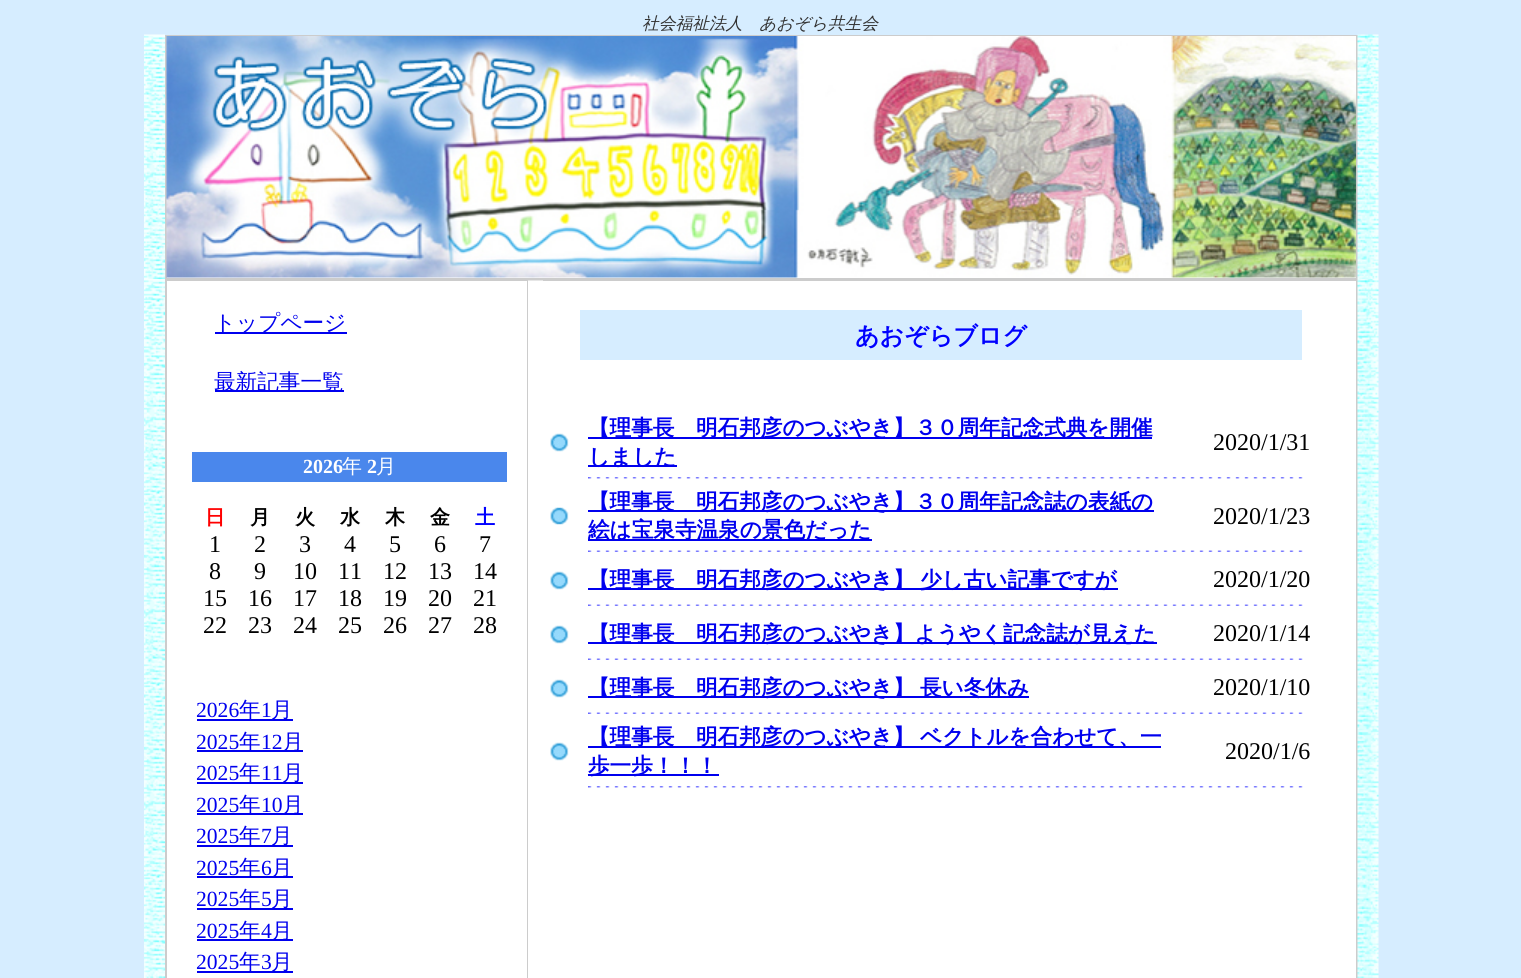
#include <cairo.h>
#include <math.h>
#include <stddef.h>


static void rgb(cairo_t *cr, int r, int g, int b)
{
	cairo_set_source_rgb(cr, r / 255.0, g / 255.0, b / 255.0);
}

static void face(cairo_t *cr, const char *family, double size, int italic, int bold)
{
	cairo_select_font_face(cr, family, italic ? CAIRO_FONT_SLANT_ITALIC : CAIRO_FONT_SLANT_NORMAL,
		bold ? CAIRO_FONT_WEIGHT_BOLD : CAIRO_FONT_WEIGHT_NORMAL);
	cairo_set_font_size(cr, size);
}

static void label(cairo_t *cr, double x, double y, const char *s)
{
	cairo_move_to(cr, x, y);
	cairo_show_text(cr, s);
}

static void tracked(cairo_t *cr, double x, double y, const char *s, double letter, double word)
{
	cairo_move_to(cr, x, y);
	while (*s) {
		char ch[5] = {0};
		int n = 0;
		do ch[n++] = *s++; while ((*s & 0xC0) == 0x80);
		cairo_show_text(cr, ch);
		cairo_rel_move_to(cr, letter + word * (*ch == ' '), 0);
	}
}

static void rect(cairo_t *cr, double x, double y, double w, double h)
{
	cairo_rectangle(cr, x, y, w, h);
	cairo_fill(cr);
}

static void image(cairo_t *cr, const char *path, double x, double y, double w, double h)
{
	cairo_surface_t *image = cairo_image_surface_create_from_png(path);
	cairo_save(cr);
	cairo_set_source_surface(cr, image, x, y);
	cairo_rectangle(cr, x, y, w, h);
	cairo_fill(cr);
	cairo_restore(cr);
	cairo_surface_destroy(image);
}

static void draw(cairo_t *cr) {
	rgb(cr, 214, 237, 255);
	cairo_paint(cr);
	face(cr, "WenQuanYi Zen Hei Medium", 16.75, 1, 0);
	rgb(cr, 51, 51, 51);
	label(cr, 642, 29, "社会福祉法人　あおぞら共生会");
	image(cr, "image0.png", 144, 34, 21, 245);
	rgb(cr, 204, 204, 204);
	rect(cr, 165, 35, 1193, 943);
	rgb(cr, 255, 255, 255);
	rect(cr, 167, 277, 1189, 1);
	image(cr, "image1.png", 166, 36, 1190, 242);
	image(cr, "image2.png", 1357, 34, 22, 245);
	image(cr, "image3.png", 144, 279, 21, 699);
	rect(cr, 167, 281, 360, 697);
	rgb(cr, 0, 0, 238);
	rect(cr, 215, 332, 132, 2);
	face(cr, "WenQuanYi Zen Hei Medium", 21.6, 0, 0);
	label(cr, 214, 330, "トップページ");
	rect(cr, 215, 390, 129, 2);
	label(cr, 214, 389, "最新記事一覧");
	rgb(cr, 74, 135, 236);
	rect(cr, 192, 452, 315, 30);
	face(cr, "Liberation Serif", 20, 0, 1);
	rgb(cr, 255, 255, 255);
	label(cr, 303, 473, "2026");
	face(cr, "WenQuanYi Zen Hei Medium", 20, 0, 0);
	label(cr, 342, 473, "年");
	face(cr, "Liberation Serif", 20, 0, 1);
	label(cr, 367, 473, "2");
	face(cr, "WenQuanYi Zen Hei Medium", 20, 0, 0);
	label(cr, 376, 473, "月");
	face(cr, "WenQuanYi Zen Hei", 20, 0, 1);
	rgb(cr, 255, 0, 0);
	label(cr, 205, 524, "日");
	rgb(cr, 0, 0, 0);
	label(cr, 250, 524, "月");
	label(cr, 295, 524, "火");
	label(cr, 340, 524, "水");
	label(cr, 385, 524, "木");
	label(cr, 430, 524, "金");
	rgb(cr, 0, 0, 255);
	label(cr, 475, 524, "土");
	face(cr, "Liberation Serif", 24, 0, 0);
	rgb(cr, 0, 0, 0);
	label(cr, 209, 552, "1");
	label(cr, 254, 552, "2");
	label(cr, 299, 552, "3");
	label(cr, 344, 552, "4");
	label(cr, 389, 552, "5");
	label(cr, 434, 552, "6");
	label(cr, 479, 552, "7");
	label(cr, 209, 579, "8");
	label(cr, 254, 579, "9");
	label(cr, 293, 579, "10");
	label(cr, 338, 579, "11");
	label(cr, 383, 579, "12");
	label(cr, 428, 579, "13");
	label(cr, 473, 579, "14");
	label(cr, 203, 606, "15");
	label(cr, 248, 606, "16");
	label(cr, 293, 606, "17");
	label(cr, 338, 606, "18");
	label(cr, 383, 606, "19");
	label(cr, 428, 606, "20");
	label(cr, 473, 606, "21");
	label(cr, 203, 633, "22");
	label(cr, 248, 633, "23");
	label(cr, 293, 633, "24");
	label(cr, 338, 633, "25");
	label(cr, 383, 633, "26");
	label(cr, 428, 633, "27");
	label(cr, 473, 633, "28");
	face(cr, "Liberation Serif", 21.6, 0, 0);
	rgb(cr, 0, 0, 238);
	label(cr, 196, 717, "2026");
	rect(cr, 197, 719, 96, 2);
	face(cr, "WenQuanYi Zen Hei Medium", 21.6, 0, 0);
	label(cr, 239, 717, "年");
	face(cr, "Liberation Serif", 21.6, 0, 0);
	label(cr, 261, 717, "1");
	face(cr, "WenQuanYi Zen Hei Medium", 21.6, 0, 0);
	label(cr, 271, 717, "月");
	face(cr, "Liberation Serif", 21.6, 0, 0);
	label(cr, 196, 749, "2025");
	rect(cr, 197, 750, 106, 2);
	face(cr, "WenQuanYi Zen Hei Medium", 21.6, 0, 0);
	label(cr, 239, 749, "年");
	face(cr, "Liberation Serif", 21.6, 0, 0);
	label(cr, 261, 749, "12");
	face(cr, "WenQuanYi Zen Hei Medium", 21.6, 0, 0);
	label(cr, 282, 749, "月");
	face(cr, "Liberation Serif", 21.6, 0, 0);
	label(cr, 196, 780, "2025");
	rect(cr, 197, 782, 106, 2);
	face(cr, "WenQuanYi Zen Hei Medium", 21.6, 0, 0);
	label(cr, 239, 780, "年");
	face(cr, "Liberation Serif", 21.6, 0, 0);
	label(cr, 261, 780, "11");
	face(cr, "WenQuanYi Zen Hei Medium", 21.6, 0, 0);
	label(cr, 282, 780, "月");
	face(cr, "Liberation Serif", 21.6, 0, 0);
	label(cr, 196, 812, "2025");
	rect(cr, 197, 813, 106, 2);
	face(cr, "WenQuanYi Zen Hei Medium", 21.6, 0, 0);
	label(cr, 239, 812, "年");
	face(cr, "Liberation Serif", 21.6, 0, 0);
	label(cr, 261, 812, "10");
	face(cr, "WenQuanYi Zen Hei Medium", 21.6, 0, 0);
	label(cr, 282, 812, "月");
	face(cr, "Liberation Serif", 21.6, 0, 0);
	label(cr, 196, 843, "2025");
	rect(cr, 197, 845, 96, 2);
	face(cr, "WenQuanYi Zen Hei Medium", 21.6, 0, 0);
	label(cr, 239, 843, "年");
	face(cr, "Liberation Serif", 21.6, 0, 0);
	label(cr, 261, 843, "7");
	face(cr, "WenQuanYi Zen Hei Medium", 21.6, 0, 0);
	label(cr, 271, 843, "月");
	face(cr, "Liberation Serif", 21.6, 0, 0);
	label(cr, 196, 875, "2025");
	rect(cr, 197, 876, 96, 2);
	face(cr, "WenQuanYi Zen Hei Medium", 21.6, 0, 0);
	label(cr, 239, 875, "年");
	face(cr, "Liberation Serif", 21.6, 0, 0);
	label(cr, 261, 875, "6");
	face(cr, "WenQuanYi Zen Hei Medium", 21.6, 0, 0);
	label(cr, 271, 875, "月");
	face(cr, "Liberation Serif", 21.6, 0, 0);
	label(cr, 196, 906, "2025");
	rect(cr, 197, 908, 96, 2);
	face(cr, "WenQuanYi Zen Hei Medium", 21.6, 0, 0);
	label(cr, 239, 906, "年");
	face(cr, "Liberation Serif", 21.6, 0, 0);
	label(cr, 261, 906, "5");
	face(cr, "WenQuanYi Zen Hei Medium", 21.6, 0, 0);
	label(cr, 271, 906, "月");
	face(cr, "Liberation Serif", 21.6, 0, 0);
	label(cr, 196, 938, "2025");
	rect(cr, 197, 939, 96, 2);
	face(cr, "WenQuanYi Zen Hei Medium", 21.6, 0, 0);
	label(cr, 239, 938, "年");
	face(cr, "Liberation Serif", 21.6, 0, 0);
	label(cr, 261, 938, "4");
	face(cr, "WenQuanYi Zen Hei Medium", 21.6, 0, 0);
	label(cr, 271, 938, "月");
	face(cr, "Liberation Serif", 21.6, 0, 0);
	label(cr, 196, 969, "2025");
	rect(cr, 197, 971, 96, 2);
	face(cr, "WenQuanYi Zen Hei Medium", 21.6, 0, 0);
	label(cr, 239, 969, "年");
	face(cr, "Liberation Serif", 21.6, 0, 0);
	label(cr, 261, 969, "3");
	face(cr, "WenQuanYi Zen Hei Medium", 21.6, 0, 0);
	label(cr, 271, 969, "月");
	rgb(cr, 255, 255, 255);
	rect(cr, 528, 281, 828, 697);
	rgb(cr, 230, 230, 230);
	rect(cr, 528, 280, 15, 1);
	rgb(cr, 214, 237, 255);
	rect(cr, 580, 310, 722, 50);
	face(cr, "WenQuanYi Zen Hei", 24, 0, 1);
	rgb(cr, 0, 0, 255);
	label(cr, 855, 344, "あおぞらブログ");
	image(cr, "image4.png", 550, 433, 19, 19);
	rgb(cr, 0, 0, 238);
	rect(cr, 588, 437, 564, 2);
	face(cr, "WenQuanYi Zen Hei", 21.6, 0, 1);
	label(cr, 588, 435, "【理事長　明石邦彦のつぶやき】３０周年記念式典を開催");
	rect(cr, 588, 465, 89, 2);
	label(cr, 588, 464, "しました");
	face(cr, "Liberation Serif", 24, 0, 0);
	rgb(cr, 0, 0, 0);
	label(cr, 1213, 450, "2020/1/31");
	image(cr, "image5.png", 588, 477, 715, 2);
	image(cr, "image6.png", 550, 507, 19, 18);
	rgb(cr, 0, 0, 238);
	rect(cr, 588, 510, 566, 2);
	face(cr, "WenQuanYi Zen Hei", 21.6, 0, 1);
	label(cr, 588, 509, "【理事長　明石邦彦のつぶやき】３０周年記念誌の表紙の");
	rect(cr, 588, 539, 284, 2);
	label(cr, 588, 537, "絵は宝泉寺温泉の景色だった");
	face(cr, "Liberation Serif", 24, 0, 0);
	rgb(cr, 0, 0, 0);
	label(cr, 1213, 524, "2020/1/23");
	image(cr, "image7.png", 588, 550, 715, 2);
	image(cr, "image4.png", 550, 571, 19, 19);
	rgb(cr, 0, 0, 238);
	rect(cr, 588, 588, 530, 2);
	face(cr, "WenQuanYi Zen Hei", 21.6, 0, 1);
	tracked(cr, 588, 587, "【理事長　明石邦彦のつぶやき】 少し古い記事ですが", 0, -1);
	face(cr, "Liberation Serif", 24, 0, 0);
	rgb(cr, 0, 0, 0);
	label(cr, 1213, 587, "2020/1/20");
	image(cr, "image7.png", 588, 604, 715, 2);
	image(cr, "image4.png", 550, 625, 19, 19);
	rgb(cr, 0, 0, 238);
	rect(cr, 588, 642, 569, 2);
	face(cr, "WenQuanYi Zen Hei", 21.6, 0, 1);
	label(cr, 588, 641, "【理事長　明石邦彦のつぶやき】ようやく記念誌が見えた");
	face(cr, "Liberation Serif", 24, 0, 0);
	rgb(cr, 0, 0, 0);
	label(cr, 1213, 641, "2020/1/14");
	image(cr, "image7.png", 588, 658, 715, 2);
	image(cr, "image4.png", 550, 679, 19, 19);
	rgb(cr, 0, 0, 238);
	rect(cr, 588, 696, 441, 2);
	face(cr, "WenQuanYi Zen Hei", 21.6, 0, 1);
	tracked(cr, 588, 695, "【理事長　明石邦彦のつぶやき】 長い冬休み", 0, -1);
	face(cr, "Liberation Serif", 24, 0, 0);
	rgb(cr, 0, 0, 0);
	label(cr, 1213, 695, "2020/1/10");
	image(cr, "image7.png", 588, 712, 715, 2);
	image(cr, "image4.png", 550, 742, 19, 19);
	rgb(cr, 0, 0, 238);
	rect(cr, 588, 746, 573, 2);
	face(cr, "WenQuanYi Zen Hei", 21.6, 0, 1);
	tracked(cr, 588, 744, "【理事長　明石邦彦のつぶやき】 ベクトルを合わせて、一", 0, -1);
	rect(cr, 588, 774, 131, 2);
	label(cr, 588, 773, "歩一歩！！！");
	face(cr, "Liberation Serif", 24, 0, 0);
	rgb(cr, 0, 0, 0);
	label(cr, 1225, 759, "2020/1/6");
	image(cr, "image5.png", 588, 786, 715, 2);
	image(cr, "image8.png", 1357, 279, 22, 699);
}

int main(void) {
	cairo_surface_t *surface = cairo_image_surface_create(CAIRO_FORMAT_RGB24, 1521, 978);
	cairo_t *cr = cairo_create(surface);
	cairo_font_options_t *options = cairo_font_options_create();
	cairo_font_options_set_hint_metrics(options, CAIRO_HINT_METRICS_OFF);
	cairo_font_options_set_hint_style(options, CAIRO_HINT_STYLE_NONE);
	cairo_set_font_options(cr, options);
	cairo_set_miter_limit(cr, 4);
	draw(cr);
	cairo_surface_write_to_png(surface, "render.png");
	cairo_font_options_destroy(options);
	cairo_destroy(cr);
	cairo_surface_destroy(surface);
	return 0;
}
